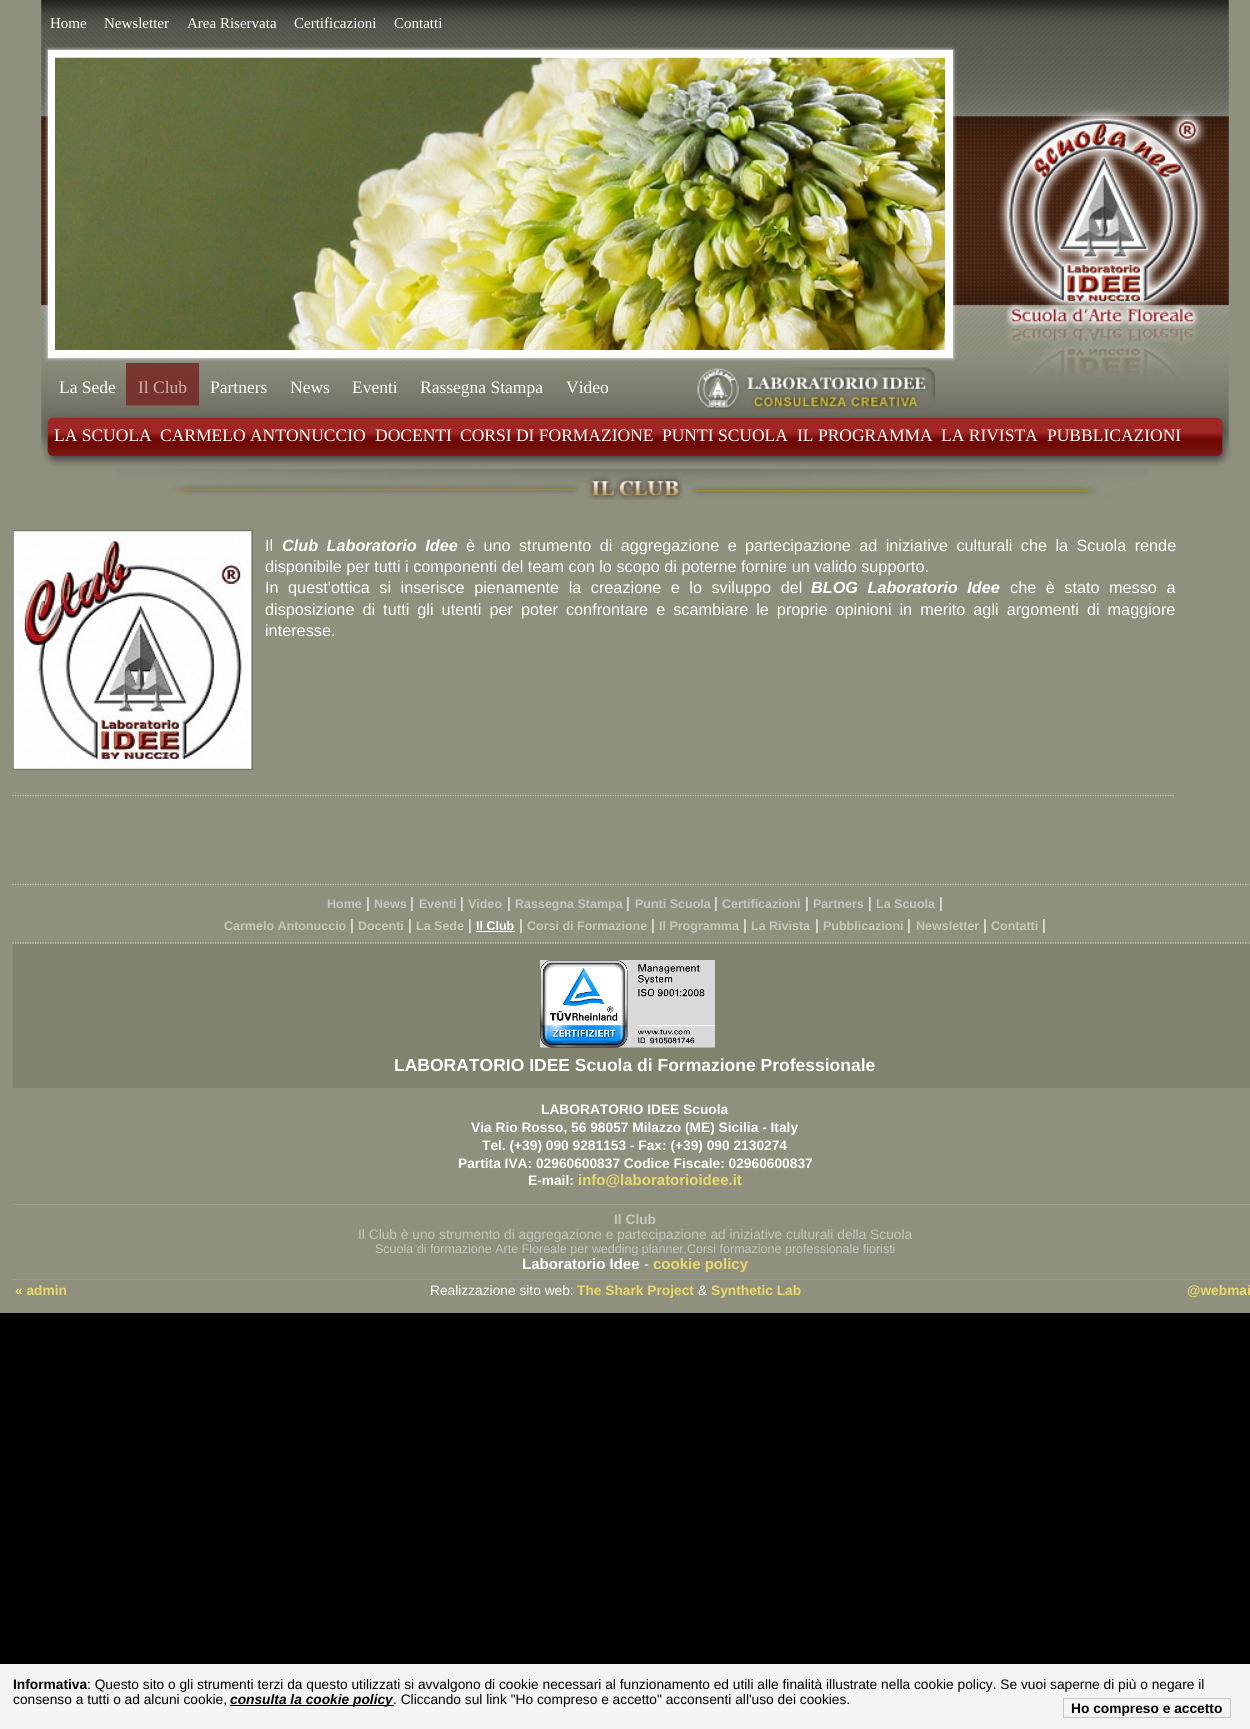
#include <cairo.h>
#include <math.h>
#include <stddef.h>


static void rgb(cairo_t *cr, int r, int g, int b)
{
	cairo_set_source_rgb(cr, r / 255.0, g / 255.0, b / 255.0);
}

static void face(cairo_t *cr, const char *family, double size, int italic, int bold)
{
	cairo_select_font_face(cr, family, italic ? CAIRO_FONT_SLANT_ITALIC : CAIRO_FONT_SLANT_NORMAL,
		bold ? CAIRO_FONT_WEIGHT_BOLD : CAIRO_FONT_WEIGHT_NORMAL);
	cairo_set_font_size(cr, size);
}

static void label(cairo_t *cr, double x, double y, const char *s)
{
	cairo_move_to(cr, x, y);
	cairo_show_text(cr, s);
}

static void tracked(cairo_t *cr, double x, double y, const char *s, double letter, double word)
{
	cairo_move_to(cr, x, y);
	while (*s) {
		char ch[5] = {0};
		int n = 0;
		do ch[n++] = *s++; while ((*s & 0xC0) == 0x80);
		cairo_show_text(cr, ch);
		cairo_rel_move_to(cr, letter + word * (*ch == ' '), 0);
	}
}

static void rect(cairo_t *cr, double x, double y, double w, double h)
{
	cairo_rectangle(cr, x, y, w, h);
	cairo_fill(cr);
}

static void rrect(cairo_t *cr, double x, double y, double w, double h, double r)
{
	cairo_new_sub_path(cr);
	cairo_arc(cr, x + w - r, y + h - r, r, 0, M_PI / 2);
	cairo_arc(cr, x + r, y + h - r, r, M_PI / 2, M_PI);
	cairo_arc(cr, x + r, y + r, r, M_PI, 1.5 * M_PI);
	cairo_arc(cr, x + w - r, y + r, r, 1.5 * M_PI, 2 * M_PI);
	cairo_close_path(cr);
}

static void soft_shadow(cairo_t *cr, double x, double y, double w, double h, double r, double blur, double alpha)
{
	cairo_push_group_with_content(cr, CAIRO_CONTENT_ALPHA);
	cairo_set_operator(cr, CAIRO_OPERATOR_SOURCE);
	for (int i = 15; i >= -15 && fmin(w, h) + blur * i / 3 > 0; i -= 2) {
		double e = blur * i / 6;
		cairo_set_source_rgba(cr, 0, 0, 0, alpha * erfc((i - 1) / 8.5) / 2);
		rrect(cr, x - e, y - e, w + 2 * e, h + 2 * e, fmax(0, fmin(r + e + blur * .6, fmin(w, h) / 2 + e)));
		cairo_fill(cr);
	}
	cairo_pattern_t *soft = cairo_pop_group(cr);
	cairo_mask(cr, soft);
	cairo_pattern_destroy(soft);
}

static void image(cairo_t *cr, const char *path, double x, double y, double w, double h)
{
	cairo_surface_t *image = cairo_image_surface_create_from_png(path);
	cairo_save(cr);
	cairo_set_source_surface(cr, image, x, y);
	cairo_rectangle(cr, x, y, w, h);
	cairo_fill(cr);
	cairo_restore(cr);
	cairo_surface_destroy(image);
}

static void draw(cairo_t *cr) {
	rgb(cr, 0, 0, 0);
	cairo_paint(cr);
	rgb(cr, 143, 144, 126);
	rect(cr, 0, 0, 1250, 1313);
	image(cr, "image0.png", 41, 0, 1188, 451);
	face(cr, "Liberation Serif", 15, 0, 0);
	rgb(cr, 255, 255, 255);
	label(cr, 50, 28, "Home");
	label(cr, 104, 28, "Newsletter");
	label(cr, 187, 28, "Area Riservata");
	label(cr, 294, 28, "Certificazioni");
	label(cr, 394, 28, "Contatti");
	rgb(cr, 240, 240, 240);
	soft_shadow(cr, 48, 50, 905, 308, 0, 2, 1);
	cairo_rectangle(cr, 52, 54, 897, 300);
	rgb(cr, 255, 255, 255);
	cairo_set_line_width(cr, 8);
	cairo_stroke(cr);
	image(cr, "image1.png", 55, 57, 890, 293);
	face(cr, "Liberation Serif", 17.5, 0, 0);
	label(cr, 59, 393, "La Sede");
	cairo_set_source_rgba(cr, 0.463, 0.129, 0.118, 0.8);
	rect(cr, 126, 363, 73, 42);
	rgb(cr, 118, 93, 63);
	rect(cr, 126, 405, 73, 1);
	rgb(cr, 212, 174, 173);
	label(cr, 138, 393, "Il Club");
	rgb(cr, 255, 255, 255);
	label(cr, 210, 393, "Partners");
	label(cr, 290, 393, "News");
	label(cr, 352, 393, "Eventi");
	label(cr, 420, 393, "Rassegna Stampa");
	label(cr, 566, 393, "Video");
	image(cr, "image2.png", 697, 367, 239, 43);
	image(cr, "image4.png", 116, 468, 1032, 32);
	rgb(cr, 67, 67, 67);
	soft_shadow(cr, 49, 421, 1175, 39, 6, 4, 1);
	image(cr, "image3.png", 47, 417, 1176, 40);
	rgb(cr, 255, 255, 255);
	label(cr, 54, 441, "LA SCUOLA");
	label(cr, 160, 441, "CARMELO ANTONUCCIO");
	label(cr, 375, 441, "DOCENTI");
	label(cr, 460, 441, "CORSI DI FORMAZIONE");
	label(cr, 662, 441, "PUNTI SCUOLA");
	label(cr, 797, 441, "IL PROGRAMMA");
	label(cr, 941, 441, "LA RIVISTA");
	label(cr, 1047, 441, "PUBBLICAZIONI");
	cairo_new_path(cr);
	cairo_move_to(cr, 12.5, 795.5);
	cairo_line_to(cr, 1175, 795.5);
	rgb(cr, 200, 200, 192);
	cairo_set_line_width(cr, 1.2);
	cairo_set_dash(cr, (double[]){1.25, 1.25}, 2, 0);
	cairo_stroke(cr);
	cairo_rectangle(cr, 13.5, 530.5, 239, 239);
	rgb(cr, 116, 117, 101);
	cairo_set_line_width(cr, 1);
	cairo_set_dash(cr, NULL, 0, 0);
	cairo_stroke(cr);
	image(cr, "image5.png", 13, 531, 239, 238);
	face(cr, "Liberation Sans", 16.25, 0, 0);
	rgb(cr, 255, 255, 255);
	label(cr, 265, 551, "Il");
	face(cr, "Liberation Sans", 16.25, 1, 1);
	tracked(cr, 282, 551, "Club Laboratorio Idee", 0, 3.9);
	face(cr, "Liberation Sans", 16.25, 0, 0);
	tracked(cr, 466, 551, "è uno strumento di aggregazione e partecipazione ad iniziative culturali che la Scuola rende", 0, 3.9);
	label(cr, 265, 572, "disponibile per tutti i componenti del team con lo scopo di poterne fornire un valido supporto.");
	tracked(cr, 265, 593, "In quest'ottica si inserisce pienamente la creazione e lo sviluppo del", 0, 5);
	face(cr, "Liberation Sans", 16.25, 1, 1);
	tracked(cr, 811, 593, "BLOG Laboratorio Idee", 0, 5);
	face(cr, "Liberation Sans", 16.25, 0, 0);
	tracked(cr, 1010, 593, "che è stato messo a", 0, 5);
	tracked(cr, 265, 615, "disposizione di tutti gli utenti per poter confrontare e scambiare le proprie opinioni in merito agli argomenti di maggiore", 0, 3.5);
	label(cr, 265, 636, "interesse.");
	cairo_new_path(cr);
	cairo_move_to(cr, 12.5, 884.5);
	cairo_line_to(cr, 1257.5, 884.5);
	rgb(cr, 200, 202, 191);
	cairo_set_line_width(cr, 1.2);
	cairo_set_dash(cr, (double[]){1.25, 1.25}, 2, 0);
	cairo_stroke(cr);
	cairo_new_path(cr);
	cairo_move_to(cr, 12.5, 943);
	cairo_line_to(cr, 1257.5, 943);
	cairo_stroke(cr);
	face(cr, "Liberation Sans", 12.5, 0, 1);
	rgb(cr, 198, 200, 189);
	label(cr, 327, 908, "Home");
	face(cr, "Liberation Sans", 15, 0, 0);
	rgb(cr, 255, 255, 255);
	label(cr, 366, 908, "|");
	face(cr, "Liberation Sans", 12.5, 0, 1);
	rgb(cr, 198, 200, 189);
	label(cr, 374, 908, "News");
	face(cr, "Liberation Sans", 15, 0, 0);
	rgb(cr, 255, 255, 255);
	label(cr, 410, 908, "|");
	face(cr, "Liberation Sans", 12.5, 0, 1);
	rgb(cr, 198, 200, 189);
	label(cr, 419, 908, "Eventi");
	face(cr, "Liberation Sans", 15, 0, 0);
	rgb(cr, 255, 255, 255);
	label(cr, 460, 908, "|");
	face(cr, "Liberation Sans", 12.5, 0, 1);
	rgb(cr, 198, 200, 189);
	label(cr, 468, 908, "Video");
	face(cr, "Liberation Sans", 15, 0, 0);
	rgb(cr, 255, 255, 255);
	label(cr, 507, 908, "|");
	face(cr, "Liberation Sans", 12.5, 0, 1);
	rgb(cr, 198, 200, 189);
	label(cr, 515, 908, "Rassegna Stampa");
	face(cr, "Liberation Sans", 15, 0, 0);
	rgb(cr, 255, 255, 255);
	label(cr, 626, 908, "|");
	face(cr, "Liberation Sans", 12.5, 0, 1);
	rgb(cr, 198, 200, 189);
	label(cr, 635, 908, "Punti Scuola");
	face(cr, "Liberation Sans", 15, 0, 0);
	rgb(cr, 255, 255, 255);
	label(cr, 714, 908, "|");
	face(cr, "Liberation Sans", 12.5, 0, 1);
	rgb(cr, 198, 200, 189);
	label(cr, 722, 908, "Certificazioni");
	face(cr, "Liberation Sans", 15, 0, 0);
	rgb(cr, 255, 255, 255);
	label(cr, 805, 908, "|");
	face(cr, "Liberation Sans", 12.5, 0, 1);
	rgb(cr, 198, 200, 189);
	label(cr, 813, 908, "Partners");
	face(cr, "Liberation Sans", 15, 0, 0);
	rgb(cr, 255, 255, 255);
	label(cr, 868, 908, "|");
	face(cr, "Liberation Sans", 12.5, 0, 1);
	rgb(cr, 198, 200, 189);
	label(cr, 876, 908, "La Scuola");
	face(cr, "Liberation Sans", 15, 0, 0);
	rgb(cr, 255, 255, 255);
	label(cr, 939, 908, "|");
	face(cr, "Liberation Sans", 12.5, 0, 1);
	rgb(cr, 198, 200, 189);
	label(cr, 224, 930, "Carmelo Antonuccio");
	face(cr, "Liberation Sans", 15, 0, 0);
	rgb(cr, 255, 255, 255);
	label(cr, 350, 930, "|");
	face(cr, "Liberation Sans", 12.5, 0, 1);
	rgb(cr, 198, 200, 189);
	label(cr, 358, 930, "Docenti");
	face(cr, "Liberation Sans", 15, 0, 0);
	rgb(cr, 255, 255, 255);
	label(cr, 408, 930, "|");
	face(cr, "Liberation Sans", 12.5, 0, 1);
	rgb(cr, 198, 200, 189);
	label(cr, 416, 930, "La Sede");
	face(cr, "Liberation Sans", 15, 0, 0);
	rgb(cr, 255, 255, 255);
	label(cr, 468, 930, "|");
	face(cr, "Liberation Sans", 12.5, 0, 1);
	label(cr, 476, 930, "Il Club");
	rect(cr, 476, 931, 39, 1);
	face(cr, "Liberation Sans", 15, 0, 0);
	label(cr, 519, 930, "|");
	face(cr, "Liberation Sans", 12.5, 0, 1);
	rgb(cr, 198, 200, 189);
	label(cr, 527, 930, "Corsi di Formazione");
	face(cr, "Liberation Sans", 15, 0, 0);
	rgb(cr, 255, 255, 255);
	label(cr, 651, 930, "|");
	face(cr, "Liberation Sans", 12.5, 0, 1);
	rgb(cr, 198, 200, 189);
	label(cr, 659, 930, "Il Programma");
	face(cr, "Liberation Sans", 15, 0, 0);
	rgb(cr, 255, 255, 255);
	label(cr, 743, 930, "|");
	face(cr, "Liberation Sans", 12.5, 0, 1);
	rgb(cr, 198, 200, 189);
	label(cr, 751, 930, "La Rivista");
	face(cr, "Liberation Sans", 15, 0, 0);
	rgb(cr, 255, 255, 255);
	label(cr, 815, 930, "|");
	face(cr, "Liberation Sans", 12.5, 0, 1);
	rgb(cr, 198, 200, 189);
	label(cr, 823, 930, "Pubblicazioni");
	face(cr, "Liberation Sans", 15, 0, 0);
	rgb(cr, 255, 255, 255);
	label(cr, 907, 930, "|");
	face(cr, "Liberation Sans", 12.5, 0, 1);
	rgb(cr, 198, 200, 189);
	label(cr, 916, 930, "Newsletter");
	face(cr, "Liberation Sans", 15, 0, 0);
	rgb(cr, 255, 255, 255);
	label(cr, 983, 930, "|");
	face(cr, "Liberation Sans", 12.5, 0, 1);
	rgb(cr, 198, 200, 189);
	label(cr, 991, 930, "Contatti");
	face(cr, "Liberation Sans", 15, 0, 0);
	rgb(cr, 255, 255, 255);
	label(cr, 1042, 930, "|");
	rgb(cr, 129, 131, 110);
	rect(cr, 13, 944, 1237, 144);
	image(cr, "image6.png", 540, 960, 175, 88);
	face(cr, "Liberation Sans", 17.5, 0, 1);
	rgb(cr, 255, 255, 255);
	label(cr, 394, 1071, "LABORATORIO IDEE Scuola di Formazione Professionale");
	face(cr, "Liberation Sans", 13.75, 0, 1);
	label(cr, 541, 1114, "LABORATORIO IDEE Scuola");
	label(cr, 471, 1132, "Via Rio Rosso, 56 98057 Milazzo (ME) Sicilia - Italy");
	label(cr, 482, 1150, "Tel. (+39) 090 9281153 - Fax: (+39) 090 2130274");
	label(cr, 458, 1168, "Partita IVA: 02960600837 Codice Fiscale: 02960600837");
	label(cr, 528, 1185, "E-mail:");
	face(cr, "Liberation Sans", 15, 0, 1);
	rgb(cr, 235, 217, 109);
	label(cr, 578, 1185, "info@laboratorioidee.it");
	rgb(cr, 153, 153, 153);
	rect(cr, 13, 1204, 1237, 1);
	rect(cr, 13, 1279, 1237, 1);
	face(cr, "Liberation Sans", 13.75, 0, 1);
	rgb(cr, 198, 200, 189);
	label(cr, 614, 1224, "Il Club");
	face(cr, "Liberation Sans", 13.75, 0, 0);
	label(cr, 358, 1239, "Il Club è uno strumento di aggregazione e partecipazione ad iniziative culturali della Scuola");
	face(cr, "Liberation Sans", 12.5, 0, 0);
	label(cr, 375, 1253, "Scuola di formazione Arte Floreale per wedding planner,Corsi formazione professionale fioristi");
	face(cr, "Liberation Sans", 15, 0, 1);
	rgb(cr, 255, 255, 255);
	label(cr, 522, 1269, "Laboratorio Idee");
	face(cr, "Liberation Sans", 15, 0, 0);
	label(cr, 644, 1269, "-");
	face(cr, "Liberation Sans", 15, 0, 1);
	rgb(cr, 235, 217, 109);
	label(cr, 653, 1269, "cookie policy");
	face(cr, "Liberation Sans", 13.75, 0, 1);
	label(cr, 15, 1295, "« admin");
	face(cr, "Liberation Sans", 13.75, 0, 0);
	rgb(cr, 255, 255, 255);
	label(cr, 430, 1295, "Realizzazione sito web:");
	face(cr, "Liberation Sans", 13.75, 0, 1);
	rgb(cr, 235, 217, 109);
	label(cr, 577, 1295, "The Shark Project");
	face(cr, "Liberation Sans", 13.75, 0, 0);
	rgb(cr, 255, 255, 255);
	label(cr, 698, 1295, "&");
	face(cr, "Liberation Sans", 13.75, 0, 1);
	rgb(cr, 235, 217, 109);
	label(cr, 711, 1295, "Synthetic Lab");
	label(cr, 1187, 1295, "@webmai");
	rgb(cr, 244, 244, 244);
	rect(cr, 0, 1664, 1250, 65);
	rgb(cr, 0, 0, 0);
	label(cr, 13, 1689, "Informativa");
	face(cr, "Liberation Sans", 13.75, 0, 0);
	label(cr, 87, 1689, ": Questo sito o gli strumenti terzi da questo utilizzati si avvalgono di cookie necessari al funzionamento ed utili alle finalità illustrate nella cookie policy. Se vuoi saperne di più o negare il");
	label(cr, 13, 1704, "consenso a tutti o ad alcuni cookie,");
	rect(cr, 230, 1705, 164, 1);
	face(cr, "Liberation Sans", 13.75, 1, 1);
	label(cr, 230, 1704, "consulta la cookie policy");
	face(cr, "Liberation Sans", 13.75, 0, 0);
	label(cr, 393, 1704, ". Cliccando sul link \"Ho compreso e accetto\" acconsenti all'uso dei cookies.");
	cairo_rectangle(cr, 1063.5, 1698.5, 167, 19);
	rgb(cr, 198, 198, 202);
	cairo_set_line_width(cr, 1);
	cairo_set_dash(cr, NULL, 0, 0);
	cairo_stroke(cr);
	face(cr, "Liberation Sans", 13.75, 0, 1);
	rgb(cr, 0, 0, 0);
	label(cr, 1071, 1713, "Ho compreso e accetto");
}

int main(void) {
	cairo_surface_t *surface = cairo_image_surface_create(CAIRO_FORMAT_RGB24, 1250, 1729);
	cairo_t *cr = cairo_create(surface);
	cairo_font_options_t *options = cairo_font_options_create();
	cairo_font_options_set_hint_metrics(options, CAIRO_HINT_METRICS_OFF);
	cairo_font_options_set_hint_style(options, CAIRO_HINT_STYLE_NONE);
	cairo_set_font_options(cr, options);
	cairo_set_miter_limit(cr, 4);
	draw(cr);
	cairo_surface_write_to_png(surface, "render.png");
	cairo_font_options_destroy(options);
	cairo_destroy(cr);
	cairo_surface_destroy(surface);
	return 0;
}
